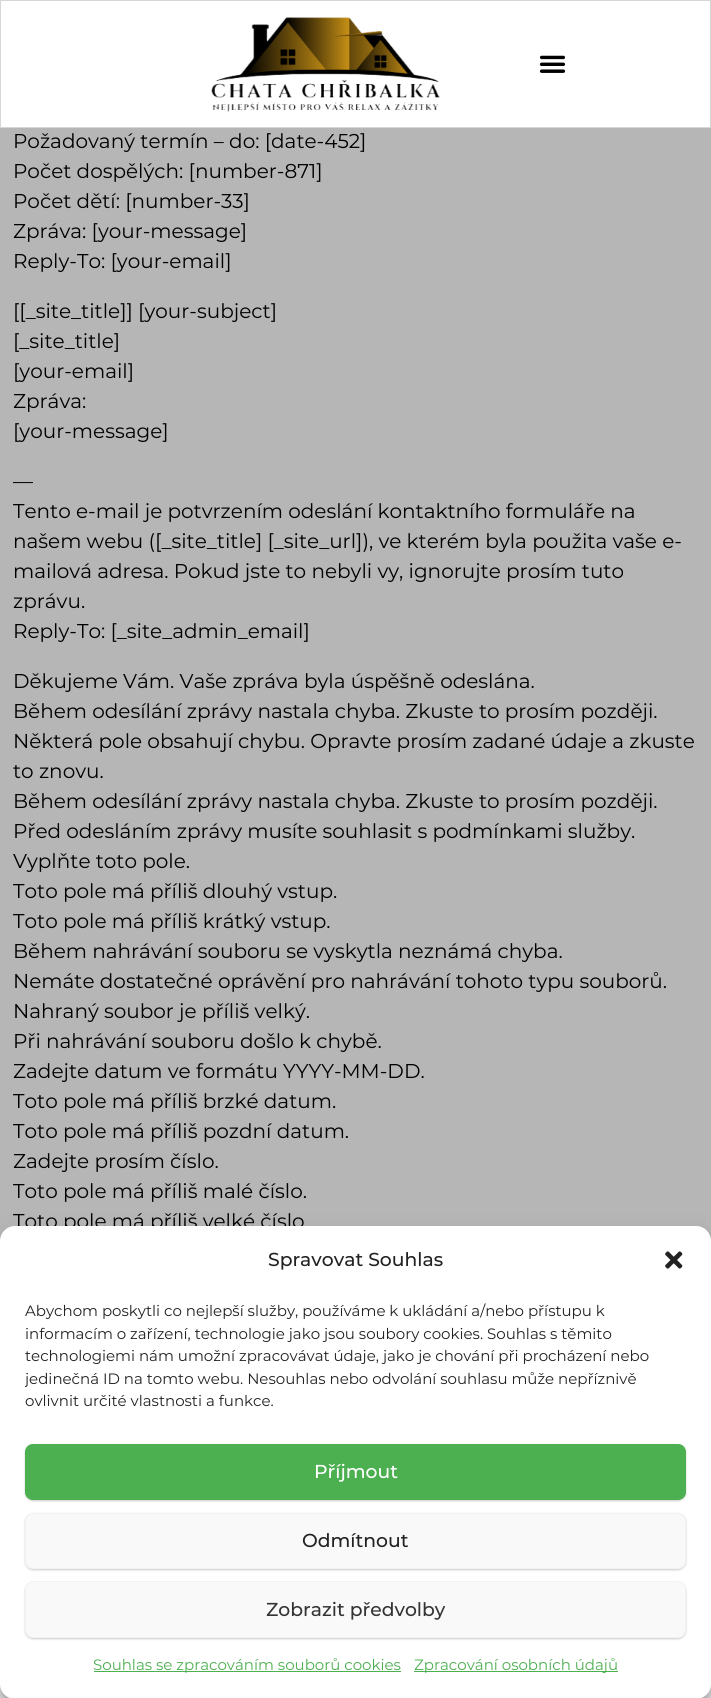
#include <cairo.h>
#include <math.h>
#include <stddef.h>


static void rgb(cairo_t *cr, int r, int g, int b)
{
	cairo_set_source_rgb(cr, r / 255.0, g / 255.0, b / 255.0);
}

static void face(cairo_t *cr, const char *family, double size, int italic, int bold)
{
	cairo_select_font_face(cr, family, italic ? CAIRO_FONT_SLANT_ITALIC : CAIRO_FONT_SLANT_NORMAL,
		bold ? CAIRO_FONT_WEIGHT_BOLD : CAIRO_FONT_WEIGHT_NORMAL);
	cairo_set_font_size(cr, size);
}

static void label(cairo_t *cr, double x, double y, const char *s)
{
	cairo_move_to(cr, x, y);
	cairo_show_text(cr, s);
}

static void rect(cairo_t *cr, double x, double y, double w, double h)
{
	cairo_rectangle(cr, x, y, w, h);
	cairo_fill(cr);
}

static void rrect(cairo_t *cr, double x, double y, double w, double h, double r)
{
	cairo_new_sub_path(cr);
	cairo_arc(cr, x + w - r, y + h - r, r, 0, M_PI / 2);
	cairo_arc(cr, x + r, y + h - r, r, M_PI / 2, M_PI);
	cairo_arc(cr, x + r, y + r, r, M_PI, 1.5 * M_PI);
	cairo_arc(cr, x + w - r, y + r, r, 1.5 * M_PI, 2 * M_PI);
	cairo_close_path(cr);
}

static void soft_shadow(cairo_t *cr, double x, double y, double w, double h, double r, double blur, double alpha)
{
	cairo_push_group_with_content(cr, CAIRO_CONTENT_ALPHA);
	cairo_set_operator(cr, CAIRO_OPERATOR_SOURCE);
	for (int i = 15; i >= -15 && fmin(w, h) + blur * i / 3 > 0; i -= 2) {
		double e = blur * i / 6;
		cairo_set_source_rgba(cr, 0, 0, 0, alpha * erfc((i - 1) / 8.5) / 2);
		rrect(cr, x - e, y - e, w + 2 * e, h + 2 * e, fmax(0, fmin(r + e + blur * .6, fmin(w, h) / 2 + e)));
		cairo_fill(cr);
	}
	cairo_pattern_t *soft = cairo_pop_group(cr);
	cairo_mask(cr, soft);
	cairo_pattern_destroy(soft);
}

static void image(cairo_t *cr, const char *path, double x, double y, double w, double h)
{
	cairo_surface_t *image = cairo_image_surface_create_from_png(path);
	cairo_save(cr);
	cairo_set_source_surface(cr, image, x, y);
	cairo_rectangle(cr, x, y, w, h);
	cairo_fill(cr);
	cairo_restore(cr);
	cairo_surface_destroy(image);
}

static void draw(cairo_t *cr) {
	rgb(cr, 182, 182, 182);
	cairo_paint(cr);
	rgb(cr, 255, 255, 255);
	cairo_rectangle(cr, 0.5, 0.5, 710, 127);
	cairo_fill_preserve(cr);
	rgb(cr, 214, 214, 214);
	cairo_set_line_width(cr, 1);
	cairo_stroke(cr);
	image(cr, "image0.png", 211, 17, 230, 95);
	image(cr, "image1.png", 539, 55, 27, 18);
	face(cr, "Montserrat", 20, 0, 0);
	rgb(cr, 0, 0, 0);
	label(cr, 13, 148, "Požadovaný termín – do: [date-452]");
	label(cr, 13, 178, "Počet dospělých: [number-871]");
	label(cr, 13, 208, "Počet dětí: [number-33]");
	label(cr, 13, 238, "Zpráva: [your-message]");
	label(cr, 13, 268, "Reply-To: [your-email]");
	label(cr, 13, 318, "[[_site_title]] [your-subject]");
	label(cr, 13, 348, "[_site_title]");
	label(cr, 13, 378, "[your-email]");
	label(cr, 13, 408, "Zpráva:");
	label(cr, 13, 438, "[your-message]");
	label(cr, 13, 488, "—");
	label(cr, 13, 518, "Tento e-mail je potvrzením odeslání kontaktního formuláře na");
	label(cr, 13, 548, "našem webu ([_site_title] [_site_url]), ve kterém byla použita vaše e-");
	label(cr, 13, 578, "mailová adresa. Pokud jste to nebyli vy, ignorujte prosím tuto");
	label(cr, 13, 608, "zprávu.");
	label(cr, 13, 638, "Reply-To: [_site_admin_email]");
	label(cr, 13, 688, "Děkujeme Vám. Vaše zpráva byla úspěšně odeslána.");
	label(cr, 13, 718, "Během odesílání zprávy nastala chyba. Zkuste to prosím později.");
	label(cr, 13, 748, "Některá pole obsahují chybu. Opravte prosím zadané údaje a zkuste");
	label(cr, 13, 778, "to znovu.");
	label(cr, 13, 808, "Během odesílání zprávy nastala chyba. Zkuste to prosím později.");
	label(cr, 13, 838, "Před odesláním zprávy musíte souhlasit s podmínkami služby.");
	label(cr, 13, 868, "Vyplňte toto pole.");
	label(cr, 13, 898, "Toto pole má příliš dlouhý vstup.");
	label(cr, 13, 928, "Toto pole má příliš krátký vstup.");
	label(cr, 13, 958, "Během nahrávání souboru se vyskytla neznámá chyba.");
	label(cr, 13, 988, "Nemáte dostatečné oprávění pro nahrávání tohoto typu souborů.");
	label(cr, 13, 1018, "Nahraný soubor je příliš velký.");
	label(cr, 13, 1048, "Při nahrávání souboru došlo k chybě.");
	label(cr, 13, 1078, "Zadejte datum ve formátu YYYY-MM-DD.");
	label(cr, 13, 1108, "Toto pole má příliš brzké datum.");
	label(cr, 13, 1138, "Toto pole má příliš pozdní datum.");
	label(cr, 13, 1168, "Zadejte prosím číslo.");
	label(cr, 13, 1198, "Toto pole má příliš malé číslo.");
	label(cr, 13, 1228, "Toto pole má příliš velké číslo");
	rgb(cr, 243, 244, 246);
	rect(cr, 0, 1684, 711, 14);
	rgb(cr, 0, 0, 0);
	soft_shadow(cr, 0, 1234, 711, 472, 15, 4, 0.23);
	soft_shadow(cr, 0, 1239, 711, 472, 15, 12.5, 0.19);
	rgb(cr, 255, 255, 255);
	rrect(cr, 0, 1226, 711, 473, 15);
	cairo_fill(cr);
	face(cr, "Montserrat Medium", 18.75, 0, 0);
	rgb(cr, 34, 34, 34);
	label(cr, 268, 1266, "Spravovat Souhlas");
	image(cr, "image2.png", 665, 1251, 18, 18);
	face(cr, "Montserrat", 15, 0, 0);
	label(cr, 25, 1316, "Abychom poskytli co nejlepší služby, používáme k ukládání a/nebo přístupu k");
	label(cr, 25, 1339, "informacím o zařízení, technologie jako jsou soubory cookies. Souhlas s těmito");
	label(cr, 25, 1361, "technologiemi nám umožní zpracovávat údaje, jako je chování při procházení nebo");
	cairo_save(cr);
	cairo_rectangle(cr, 25, 1300, 661, 119);
	cairo_clip(cr);
	label(cr, 25, 1384, "jedinečná ID na tomto webu. Nesouhlas nebo odvolání souhlasu může nepříznivě");
	cairo_restore(cr);
	label(cr, 25, 1406, "ovlivnit určité vlastnosti a funkce.");
	rgb(cr, 0, 0, 0);
	soft_shadow(cr, 25, 1445, 661, 56, 8, 1, 0.2);
	rgb(cr, 76, 175, 80);
	rrect(cr, 25.5, 1444.5, 660, 55, 7.5);
	cairo_fill_preserve(cr);
	cairo_stroke(cr);
	face(cr, "Montserrat Medium", 18.75, 0, 0);
	rgb(cr, 255, 255, 255);
	label(cr, 314, 1478, "Příjmout");
	rgb(cr, 0, 0, 0);
	soft_shadow(cr, 25, 1514, 661, 56, 8, 1, 0.2);
	rgb(cr, 249, 249, 249);
	rrect(cr, 25.5, 1513.5, 660, 55, 7.5);
	cairo_fill_preserve(cr);
	rgb(cr, 242, 242, 242);
	cairo_stroke(cr);
	rgb(cr, 34, 34, 34);
	label(cr, 302, 1547, "Odmítnout");
	rgb(cr, 0, 0, 0);
	soft_shadow(cr, 25, 1583, 661, 56, 8, 1, 0.2);
	rgb(cr, 249, 249, 249);
	rrect(cr, 25.5, 1581.5, 660, 56, 7.5);
	cairo_fill_preserve(cr);
	rgb(cr, 242, 242, 242);
	cairo_stroke(cr);
	rgb(cr, 51, 51, 51);
	label(cr, 266, 1616, "Zobrazit předvolby");
	rgb(cr, 76, 175, 80);
	rect(cr, 94, 1671, 307, 1);
	face(cr, "Montserrat", 15, 0, 0);
	label(cr, 93, 1670, "Souhlas se zpracováním souborů cookies");
	rect(cr, 414, 1671, 204, 1);
	label(cr, 414, 1670, "Zpracování osobních údajů");
}

int main(void) {
	cairo_surface_t *surface = cairo_image_surface_create(CAIRO_FORMAT_RGB24, 711, 1698);
	cairo_t *cr = cairo_create(surface);
	cairo_font_options_t *options = cairo_font_options_create();
	cairo_font_options_set_hint_metrics(options, CAIRO_HINT_METRICS_OFF);
	cairo_font_options_set_hint_style(options, CAIRO_HINT_STYLE_NONE);
	cairo_set_font_options(cr, options);
	cairo_set_miter_limit(cr, 4);
	draw(cr);
	cairo_surface_write_to_png(surface, "render.png");
	cairo_font_options_destroy(options);
	cairo_destroy(cr);
	cairo_surface_destroy(surface);
	return 0;
}
